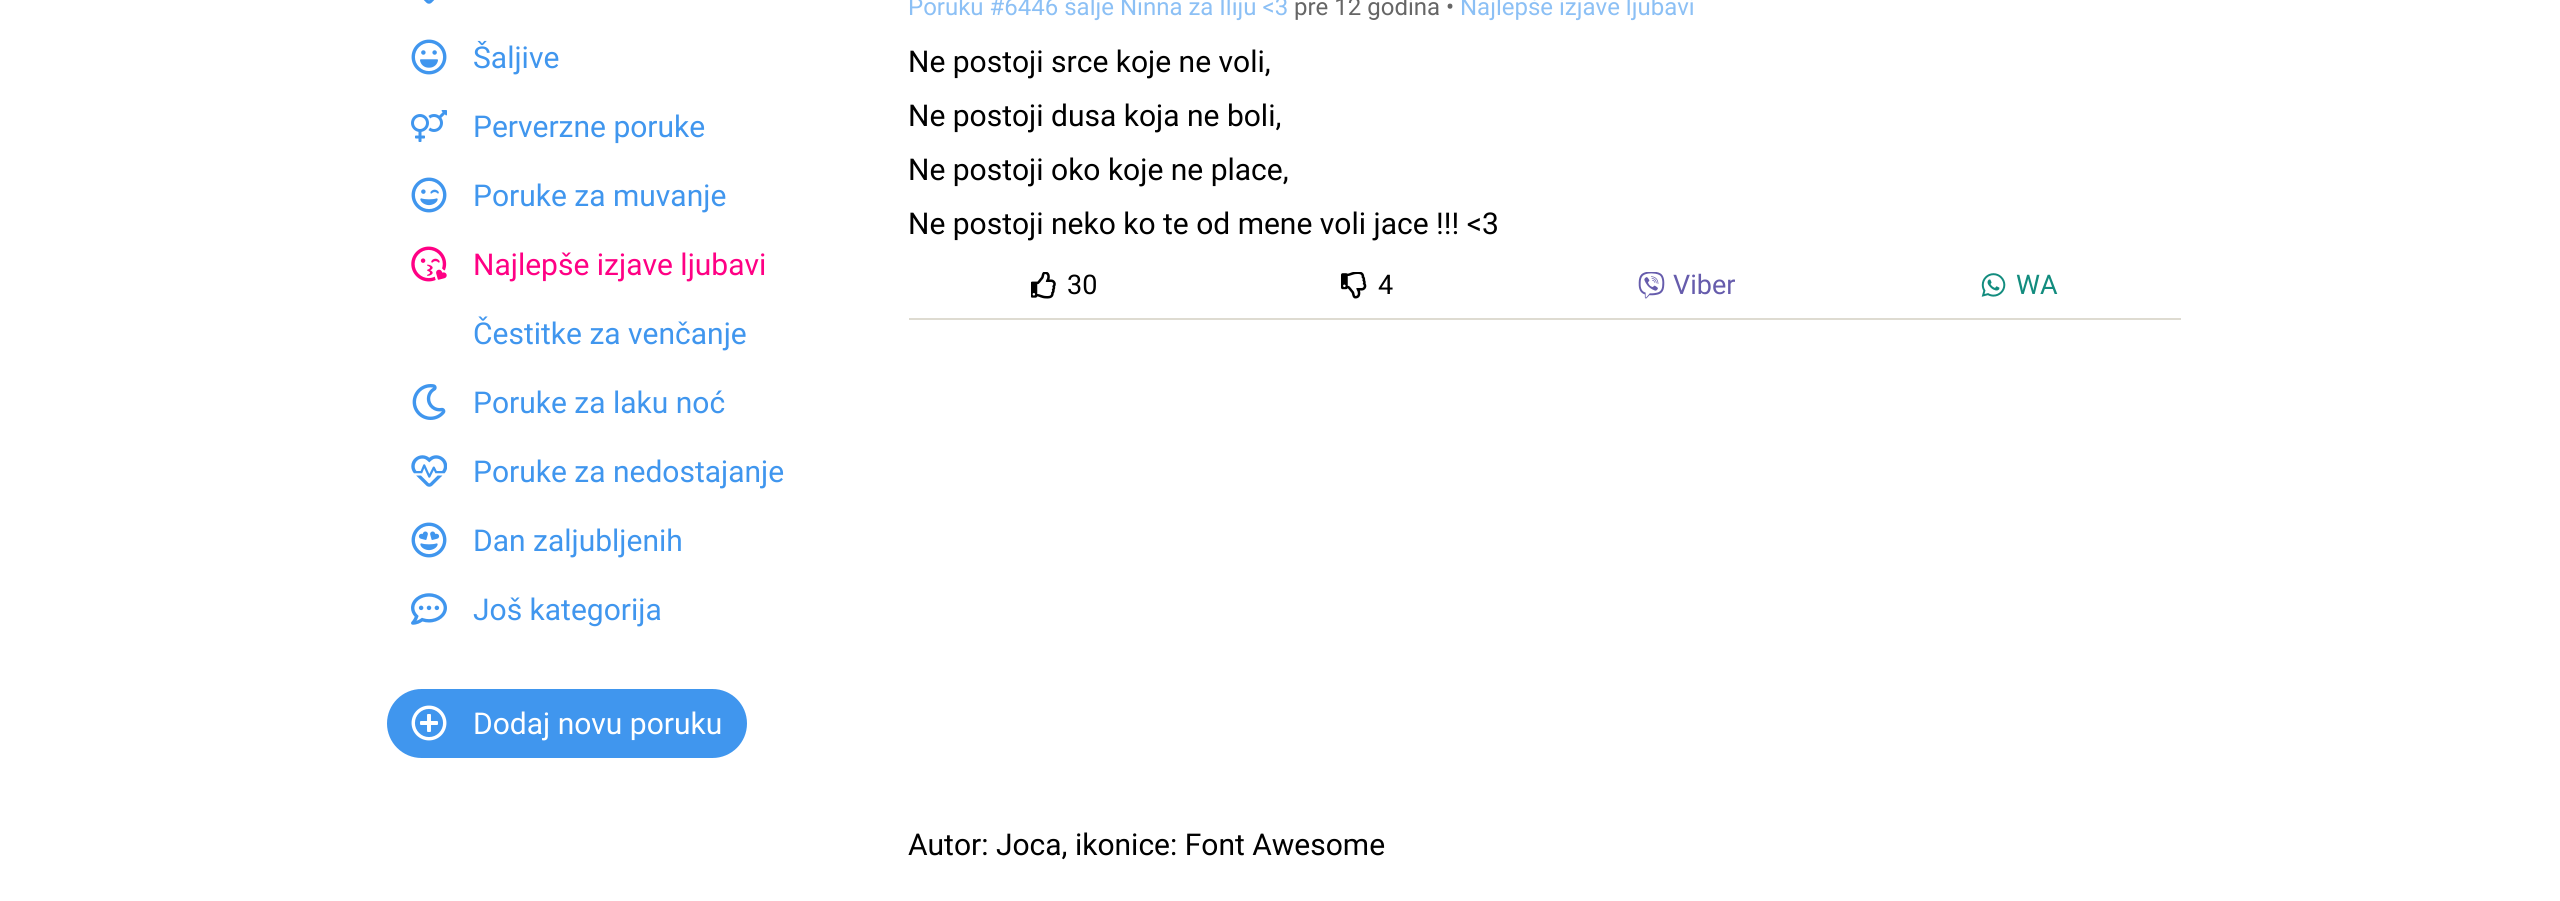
#include <cairo.h>
#include <math.h>
#include <stddef.h>


static void rgb(cairo_t *cr, int r, int g, int b)
{
	cairo_set_source_rgb(cr, r / 255.0, g / 255.0, b / 255.0);
}

static void face(cairo_t *cr, const char *family, double size, int italic, int bold)
{
	cairo_select_font_face(cr, family, italic ? CAIRO_FONT_SLANT_ITALIC : CAIRO_FONT_SLANT_NORMAL,
		bold ? CAIRO_FONT_WEIGHT_BOLD : CAIRO_FONT_WEIGHT_NORMAL);
	cairo_set_font_size(cr, size);
}

static void label(cairo_t *cr, double x, double y, const char *s)
{
	cairo_move_to(cr, x, y);
	cairo_show_text(cr, s);
}

static void rect(cairo_t *cr, double x, double y, double w, double h)
{
	cairo_rectangle(cr, x, y, w, h);
	cairo_fill(cr);
}

static void rrect(cairo_t *cr, double x, double y, double w, double h, double r)
{
	cairo_new_sub_path(cr);
	cairo_arc(cr, x + w - r, y + h - r, r, 0, M_PI / 2);
	cairo_arc(cr, x + r, y + h - r, r, M_PI / 2, M_PI);
	cairo_arc(cr, x + r, y + r, r, M_PI, 1.5 * M_PI);
	cairo_arc(cr, x + w - r, y + r, r, 1.5 * M_PI, 2 * M_PI);
	cairo_close_path(cr);
}

static void image(cairo_t *cr, const char *path, double x, double y, double w, double h)
{
	cairo_surface_t *image = cairo_image_surface_create_from_png(path);
	cairo_save(cr);
	cairo_set_source_surface(cr, image, x, y);
	cairo_rectangle(cr, x, y, w, h);
	cairo_fill(cr);
	cairo_restore(cr);
	cairo_surface_destroy(image);
}

static void draw(cairo_t *cr) {
	rgb(cr, 255, 255, 255);
	cairo_paint(cr);
	image(cr, "image0.png", 423, 0, 12, 4);
	image(cr, "image1.png", 411, 39, 36, 36);
	face(cr, "Roboto", 30, 0, 0);
	rgb(cr, 64, 150, 238);
	label(cr, 473, 68, "Šaljive");
	image(cr, "image2.png", 411, 110, 36, 32);
	label(cr, 473, 137, "Perverzne poruke");
	image(cr, "image3.png", 411, 177, 36, 36);
	label(cr, 473, 206, "Poruke za muvanje");
	image(cr, "image4.png", 411, 246, 36, 36);
	rgb(cr, 255, 0, 132);
	label(cr, 473, 275, "Najlepše izjave ljubavi");
	rgb(cr, 64, 150, 238);
	label(cr, 473, 344, "Čestitke za venčanje");
	image(cr, "image5.png", 412, 384, 34, 36);
	label(cr, 473, 413, "Poruke za laku noć");
	image(cr, "image6.png", 411, 455, 36, 32);
	label(cr, 473, 482, "Poruke za nedostajanje");
	image(cr, "image7.png", 411, 522, 36, 36);
	label(cr, 473, 551, "Dan zaljubljenih");
	image(cr, "image8.png", 411, 593, 36, 32);
	label(cr, 473, 620, "Još kategorija");
	rrect(cr, 387, 689, 360, 69, 34.5);
	cairo_fill(cr);
	image(cr, "image9.png", 411, 705, 36, 36);
	rgb(cr, 255, 255, 255);
	label(cr, 473, 734, "Dodaj novu poruku");
	rgb(cr, 222, 219, 209);
	rect(cr, 909, 318, 1272, 2);
	face(cr, "Roboto", 24, 0, 0);
	rgb(cr, 140, 192, 245);
	label(cr, 908, 15, "Poruku #6446 šalje Ninna za Iliju <3");
	rgb(cr, 102, 102, 102);
	label(cr, 1294, 15, "pre 12 godina •");
	rgb(cr, 140, 192, 245);
	label(cr, 1460, 15, "Najlepše izjave ljubavi");
	face(cr, "Roboto", 30, 0, 0);
	rgb(cr, 0, 0, 0);
	label(cr, 908, 72, "Ne postoji srce koje ne voli,");
	label(cr, 908, 126, "Ne postoji dusa koja ne boli,");
	label(cr, 908, 180, "Ne postoji oko koje ne place,");
	label(cr, 908, 234, "Ne postoji neko ko te od mene voli jace !!! <3");
	image(cr, "image10.png", 1031, 272, 25, 27);
	face(cr, "Roboto", 27, 0, 0);
	label(cr, 1067, 294, "30");
	image(cr, "image11.png", 1341, 272, 26, 27);
	label(cr, 1378, 294, "4");
	image(cr, "image12.png", 1638, 272, 27, 27);
	rgb(cr, 102, 92, 172);
	label(cr, 1673, 294, "Viber");
	image(cr, "image13.png", 1981, 273, 25, 24);
	rgb(cr, 18, 140, 126);
	label(cr, 2016, 294, "WA");
	face(cr, "Roboto", 30, 0, 0);
	rgb(cr, 0, 0, 0);
	label(cr, 908, 855, "Autor: Joca, ikonice: Font Awesome");
}

int main(void) {
	cairo_surface_t *surface = cairo_image_surface_create(CAIRO_FORMAT_RGB24, 2560, 901);
	cairo_t *cr = cairo_create(surface);
	cairo_font_options_t *options = cairo_font_options_create();
	cairo_font_options_set_hint_metrics(options, CAIRO_HINT_METRICS_OFF);
	cairo_font_options_set_hint_style(options, CAIRO_HINT_STYLE_NONE);
	cairo_set_font_options(cr, options);
	cairo_set_miter_limit(cr, 4);
	draw(cr);
	cairo_surface_write_to_png(surface, "render.png");
	cairo_font_options_destroy(options);
	cairo_destroy(cr);
	cairo_surface_destroy(surface);
	return 0;
}
